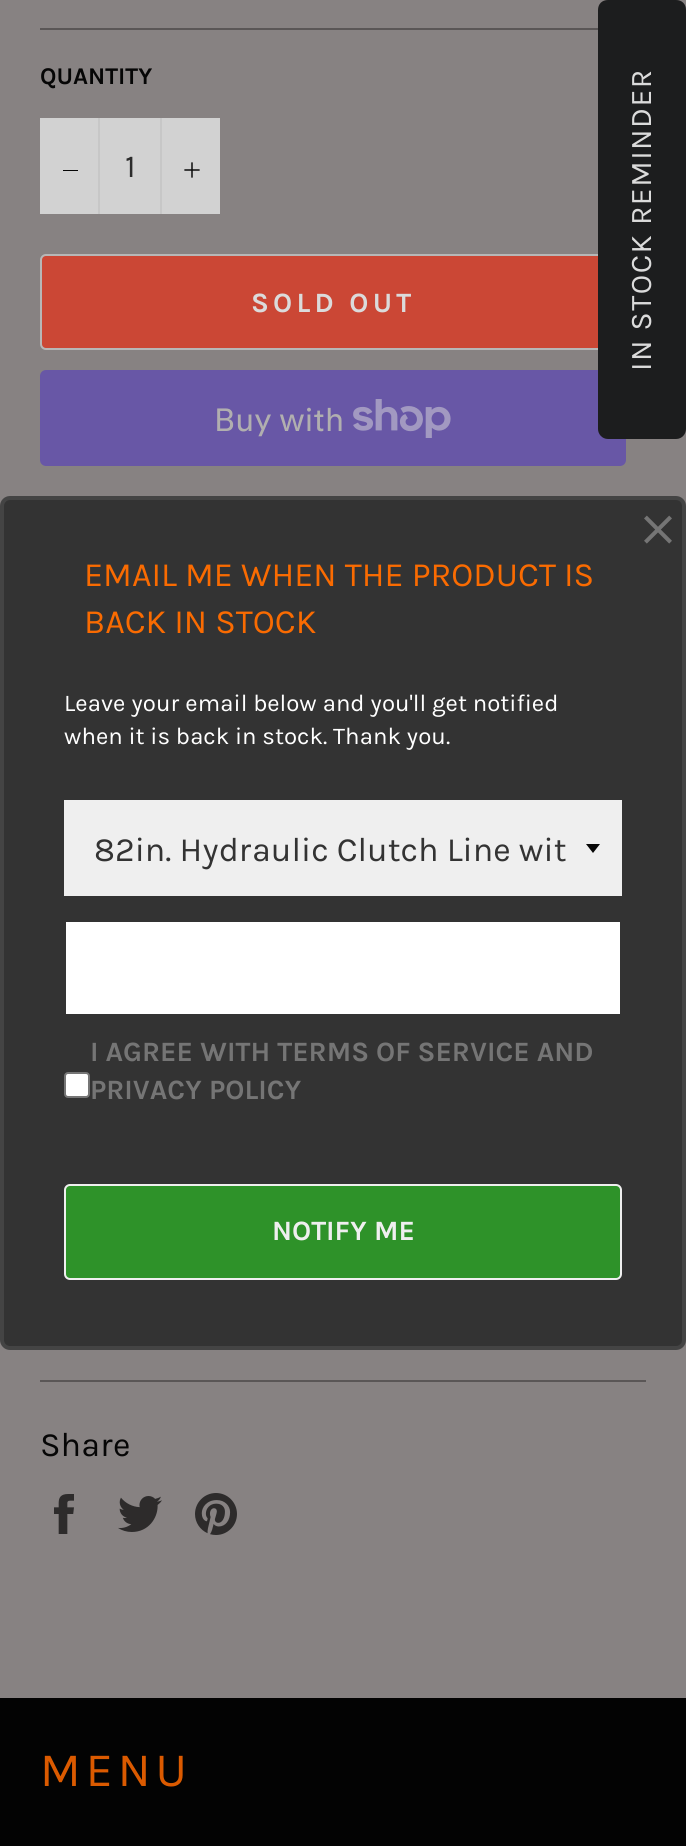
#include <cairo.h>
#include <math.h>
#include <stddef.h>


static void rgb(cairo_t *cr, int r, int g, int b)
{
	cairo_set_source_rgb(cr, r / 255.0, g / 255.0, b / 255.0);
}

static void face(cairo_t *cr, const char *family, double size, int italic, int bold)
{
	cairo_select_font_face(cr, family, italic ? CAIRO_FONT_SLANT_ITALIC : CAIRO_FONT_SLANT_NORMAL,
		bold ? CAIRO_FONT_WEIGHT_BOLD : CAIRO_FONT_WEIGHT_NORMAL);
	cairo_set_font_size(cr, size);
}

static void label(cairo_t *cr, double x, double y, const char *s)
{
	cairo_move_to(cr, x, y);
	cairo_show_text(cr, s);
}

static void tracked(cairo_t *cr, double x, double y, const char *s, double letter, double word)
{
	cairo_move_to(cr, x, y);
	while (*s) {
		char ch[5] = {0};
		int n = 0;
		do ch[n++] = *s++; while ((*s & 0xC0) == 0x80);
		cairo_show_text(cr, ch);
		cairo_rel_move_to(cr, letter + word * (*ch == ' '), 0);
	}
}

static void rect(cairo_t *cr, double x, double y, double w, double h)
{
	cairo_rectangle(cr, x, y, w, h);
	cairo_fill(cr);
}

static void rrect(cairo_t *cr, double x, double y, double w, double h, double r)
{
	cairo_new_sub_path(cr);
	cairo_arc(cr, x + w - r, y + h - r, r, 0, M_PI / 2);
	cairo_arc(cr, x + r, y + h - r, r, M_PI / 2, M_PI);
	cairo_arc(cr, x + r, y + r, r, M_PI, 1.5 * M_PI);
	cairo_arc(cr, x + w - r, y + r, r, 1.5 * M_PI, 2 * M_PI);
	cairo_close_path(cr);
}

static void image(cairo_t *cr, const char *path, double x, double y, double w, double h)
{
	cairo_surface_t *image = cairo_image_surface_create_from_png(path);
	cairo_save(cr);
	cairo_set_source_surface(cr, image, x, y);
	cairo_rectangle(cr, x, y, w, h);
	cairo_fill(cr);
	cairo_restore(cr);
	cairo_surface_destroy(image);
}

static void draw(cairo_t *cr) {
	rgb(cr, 135, 130, 130);
	cairo_paint(cr);
	rgb(cr, 90, 86, 86);
	rect(cr, 40, 28, 558, 2);
	face(cr, "Karla", 24, 0, 1);
	rgb(cr, 6, 6, 6);
	label(cr, 40, 84, "QUANTITY");
	rgb(cr, 210, 210, 210);
	rect(cr, 40, 118, 180, 96);
	rgb(cr, 199, 199, 199);
	rect(cr, 98, 118, 2, 96);
	rgb(cr, 6, 6, 6);
	rect(cr, 63, 170, 15, 1);
	face(cr, "Karla", 32, 0, 0);
	rgb(cr, 44, 44, 44);
	label(cr, 125, 177, "1");
	rgb(cr, 199, 199, 199);
	rect(cr, 160, 118, 2, 96);
	image(cr, "image0.png", 184, 162, 16, 16);
	rgb(cr, 203, 71, 53);
	rrect(cr, 41, 255, 584, 94, 5);
	cairo_fill_preserve(cr);
	rgb(cr, 183, 183, 183);
	cairo_stroke(cr);
	face(cr, "Karla", 28, 0, 1);
	rgb(cr, 219, 219, 219);
	tracked(cr, 251, 312, "SOLD OUT", 4.25, 0);
	rgb(cr, 104, 87, 166);
	rrect(cr, 40, 370, 586, 96, 6);
	cairo_fill(cr);
	face(cr, "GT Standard", 32, 0, 0);
	rgb(cr, 177, 175, 175);
	label(cr, 214, 431, "Buy with");
	image(cr, "image1.png", 353, 399, 98, 39);
	rgb(cr, 90, 86, 86);
	rect(cr, 40, 1380, 606, 2);
	face(cr, "Karla", 34, 0, 0);
	rgb(cr, 6, 6, 6);
	label(cr, 40, 1456, "Share");
	image(cr, "image2.png", 54, 1494, 20, 40);
	image(cr, "image3.png", 118, 1496, 44, 36);
	image(cr, "image4.png", 195, 1493, 42, 42);
	rgb(cr, 3, 3, 3);
	rect(cr, 0, 1698, 686, 148);
	face(cr, "Karla", 48, 0, 0);
	rgb(cr, 219, 90, 0);
	tracked(cr, 40, 1786, "MENU", 5, 0);
	rgb(cr, 28, 29, 30);
	cairo_new_path(cr);
	cairo_move_to(cr, 598, 429);
	cairo_line_to(cr, 598, 10);
	cairo_curve_to(cr, 598, 4, 602, 0, 608, 0);
	cairo_line_to(cr, 676, 0);
	cairo_curve_to(cr, 682, 0, 686, 4, 686, 10);
	cairo_line_to(cr, 686, 429);
	cairo_curve_to(cr, 686, 434, 682, 439, 676, 439);
	cairo_line_to(cr, 608, 439);
	cairo_curve_to(cr, 602, 439, 598, 434, 598, 429);
	cairo_close_path(cr);
	cairo_fill(cr);
	face(cr, "Karla", 30, 0, 0);
	rgb(cr, 219, 219, 219);
	cairo_save(cr);
	cairo_translate(cr, 651, 371);
	cairo_rotate(cr, -90 * M_PI / 180);
	tracked(cr, 0, 0, "IN STOCK REMINDER", 1.5, 0);
	cairo_restore(cr);
	rgb(cr, 51, 51, 51);
	rrect(cr, 2, 498, 682, 850, 8);
	cairo_fill_preserve(cr);
	rgb(cr, 68, 68, 68);
	cairo_set_line_width(cr, 4);
	cairo_stroke(cr);
	image(cr, "image5.png", 644, 515, 28, 29);
	face(cr, "Karla", 34, 0, 0);
	rgb(cr, 250, 107, 1);
	label(cr, 84, 586, "EMAIL ME WHEN THE PRODUCT IS");
	label(cr, 84, 633, "BACK IN STOCK");
	face(cr, "Karla", 24, 0, 0);
	rgb(cr, 255, 255, 255);
	label(cr, 64, 711, "Leave your email below and you'll get notified");
	label(cr, 64, 744, "when it is back in stock. Thank you.");
	rgb(cr, 239, 239, 239);
	rect(cr, 64, 800, 558, 96);
	rgb(cr, 7, 7, 7);
	cairo_new_path(cr);
	cairo_move_to(cr, 586, 844);
	cairo_line_to(cr, 593, 853);
	cairo_line_to(cr, 600, 844);
	cairo_close_path(cr);
	cairo_fill(cr);
	face(cr, "Karla", 34, 0, 0);
	rgb(cr, 51, 51, 51);
	label(cr, 94, 861, "82in. Hydraulic Clutch Line wit");
	rgb(cr, 255, 255, 255);
	rect(cr, 66, 922, 554, 92);
	rrect(cr, 65, 1073, 24, 24, 3);
	cairo_fill_preserve(cr);
	rgb(cr, 118, 118, 118);
	cairo_set_line_width(cr, 2);
	cairo_stroke(cr);
	face(cr, "Karla", 28, 0, 1);
	rgb(cr, 117, 117, 117);
	label(cr, 90, 1061, "I AGREE WITH TERMS OF SERVICE AND");
	label(cr, 90, 1099, "PRIVACY POLICY");
	rgb(cr, 46, 146, 41);
	rrect(cr, 65, 1185, 556, 94, 5);
	cairo_fill_preserve(cr);
	rgb(cr, 239, 239, 239);
	cairo_stroke(cr);
	label(cr, 272, 1240, "NOTIFY ME");
}

int main(void) {
	cairo_surface_t *surface = cairo_image_surface_create(CAIRO_FORMAT_RGB24, 686, 1846);
	cairo_t *cr = cairo_create(surface);
	cairo_font_options_t *options = cairo_font_options_create();
	cairo_font_options_set_hint_metrics(options, CAIRO_HINT_METRICS_OFF);
	cairo_font_options_set_hint_style(options, CAIRO_HINT_STYLE_NONE);
	cairo_set_font_options(cr, options);
	cairo_set_miter_limit(cr, 4);
	draw(cr);
	cairo_surface_write_to_png(surface, "render.png");
	cairo_font_options_destroy(options);
	cairo_destroy(cr);
	cairo_surface_destroy(surface);
	return 0;
}
